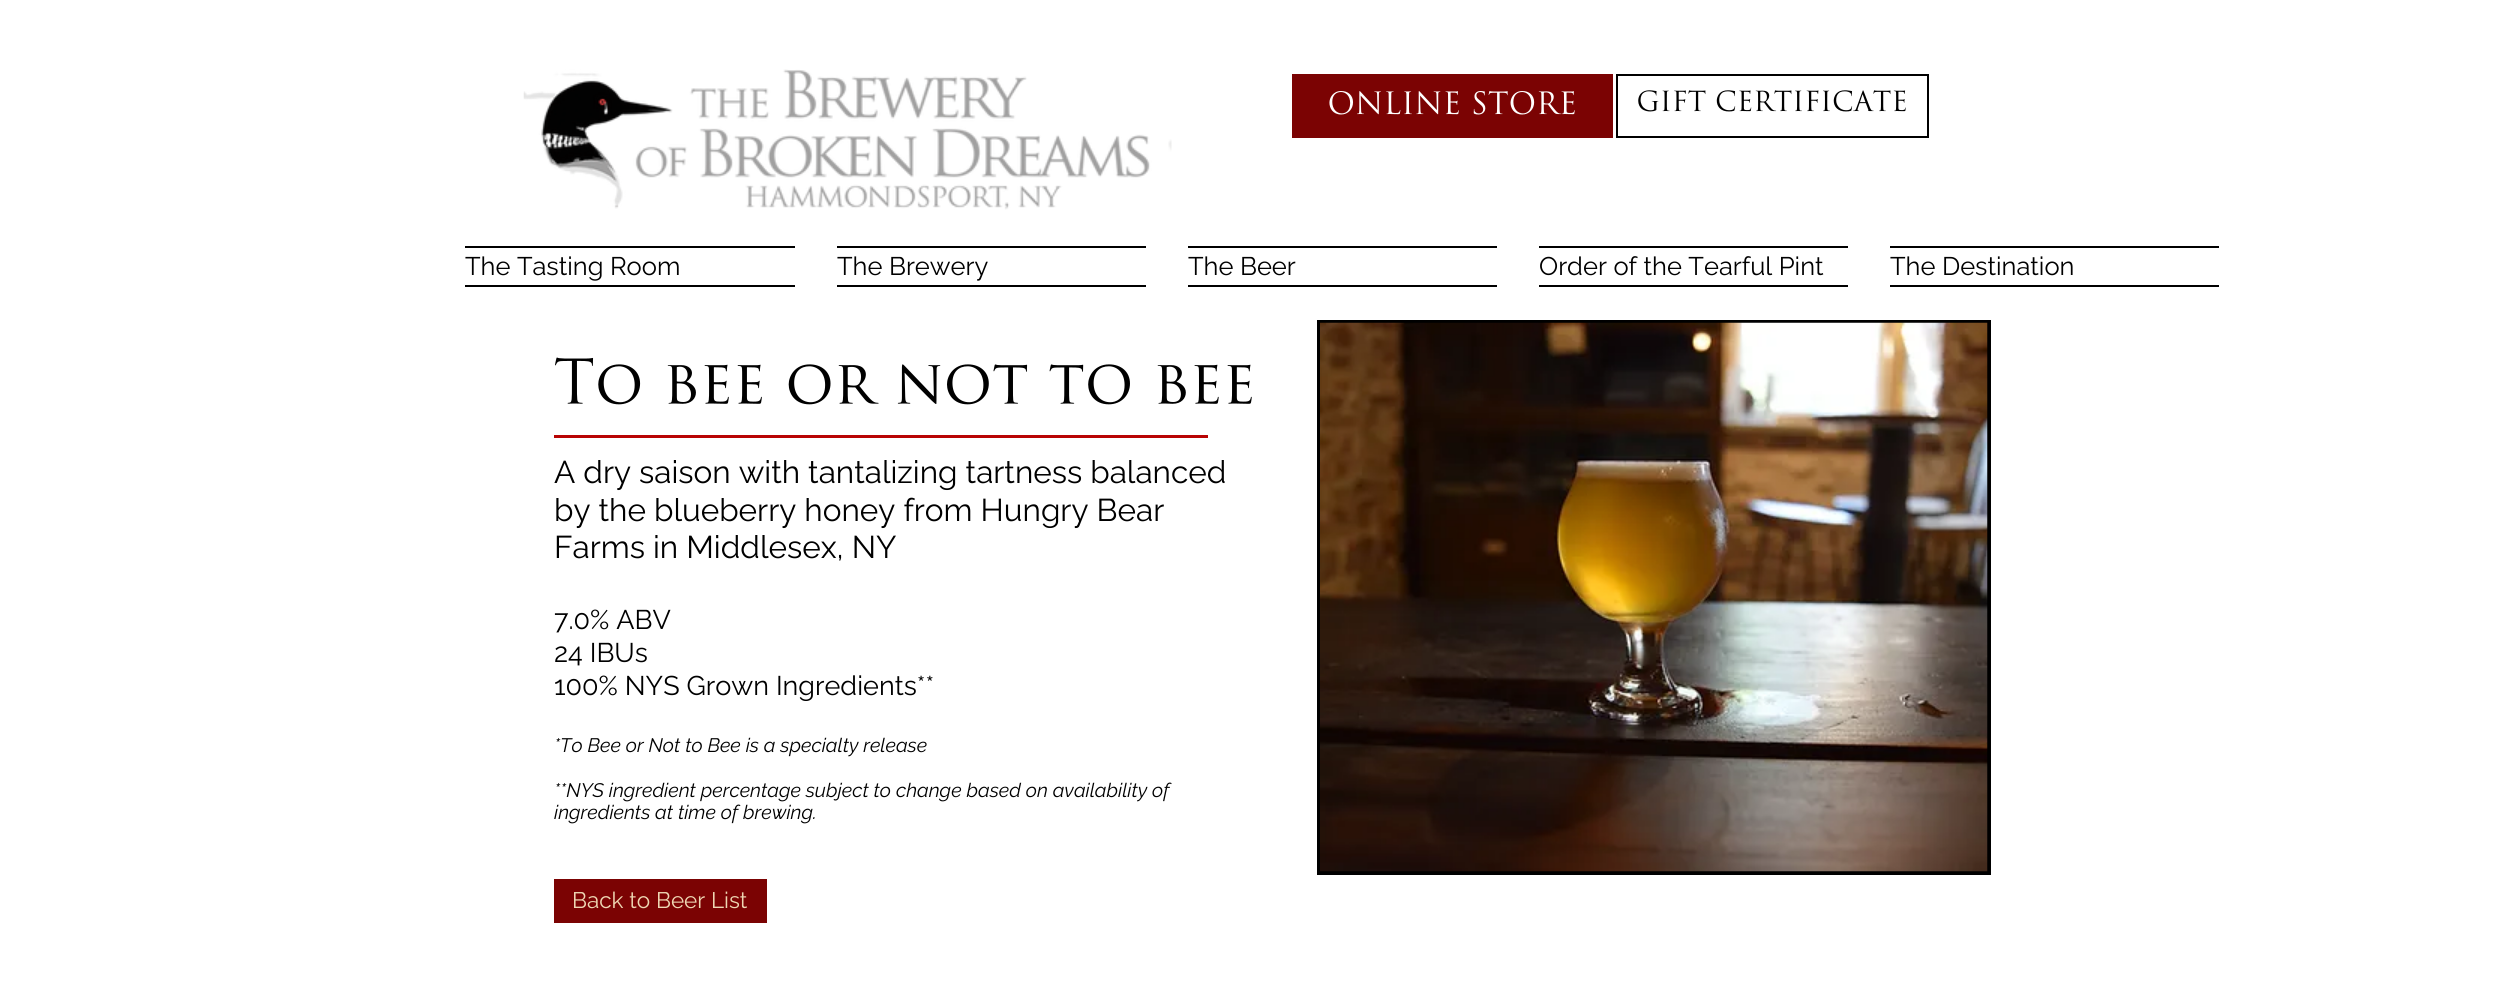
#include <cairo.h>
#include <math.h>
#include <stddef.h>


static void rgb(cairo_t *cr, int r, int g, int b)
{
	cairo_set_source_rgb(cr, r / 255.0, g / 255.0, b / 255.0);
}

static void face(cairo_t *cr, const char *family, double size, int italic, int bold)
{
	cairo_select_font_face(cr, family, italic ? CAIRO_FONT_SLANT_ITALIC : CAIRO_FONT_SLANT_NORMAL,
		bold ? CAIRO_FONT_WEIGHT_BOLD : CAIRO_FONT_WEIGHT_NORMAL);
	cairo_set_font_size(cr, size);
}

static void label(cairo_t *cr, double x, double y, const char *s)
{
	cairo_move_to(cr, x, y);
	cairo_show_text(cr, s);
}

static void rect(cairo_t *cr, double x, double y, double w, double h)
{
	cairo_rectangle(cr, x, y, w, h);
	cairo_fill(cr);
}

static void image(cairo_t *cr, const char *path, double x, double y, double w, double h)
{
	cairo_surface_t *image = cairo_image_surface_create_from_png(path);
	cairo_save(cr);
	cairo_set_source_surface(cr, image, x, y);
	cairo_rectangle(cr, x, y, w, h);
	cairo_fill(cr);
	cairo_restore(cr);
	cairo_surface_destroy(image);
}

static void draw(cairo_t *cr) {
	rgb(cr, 255, 255, 255);
	cairo_paint(cr);
	image(cr, "image0.png", 523, 69, 649, 141);
	rgb(cr, 123, 3, 3);
	rect(cr, 1292, 74, 321, 64);
	image(cr, "image1.png", 1329, 91, 246, 24);
	cairo_rectangle(cr, 1617, 75, 311, 62);
	rgb(cr, 0, 0, 0);
	cairo_stroke(cr);
	image(cr, "image2.png", 1638, 90, 268, 22);
	rect(cr, 465, 246, 330, 2);
	rect(cr, 465, 285, 330, 2);
	face(cr, "Raleway", 25.5, 0, 0);
	label(cr, 465, 275, "The Tasting Room");
	rect(cr, 837, 246, 309, 2);
	rect(cr, 837, 285, 309, 2);
	label(cr, 837, 275, "The Brewery");
	rect(cr, 1188, 246, 309, 2);
	rect(cr, 1188, 285, 309, 2);
	label(cr, 1188, 275, "The Beer");
	rect(cr, 1539, 246, 309, 2);
	rect(cr, 1539, 285, 309, 2);
	label(cr, 1539, 275, "Order of the Tearful Pint");
	rect(cr, 1890, 246, 329, 2);
	rect(cr, 1890, 285, 329, 2);
	label(cr, 1890, 275, "The Destination");
	image(cr, "image3.png", 555, 357, 697, 48);
	rect(cr, 1317, 320, 674, 555);
	image(cr, "image4.png", 1320, 322, 668, 550);
	rgb(cr, 184, 4, 4);
	rect(cr, 554, 435, 654, 3);
	face(cr, "Raleway", 31.5, 0, 0);
	rgb(cr, 0, 0, 0);
	label(cr, 554, 483, "A dry saison with tantalizing tartness balanced");
	label(cr, 554, 521, "by the blueberry honey from Hungry Bear");
	label(cr, 554, 558, "Farms in Middlesex, NY");
	face(cr, "Raleway", 27, 0, 0);
	label(cr, 554, 629, "7.0% ABV");
	label(cr, 554, 662, "24 IBUs");
	label(cr, 554, 695, "100% NYS Grown Ingredients**");
	face(cr, "Raleway", 19.5, 1, 0);
	label(cr, 554, 752, "*To Bee or Not to Bee is a specialty release");
	label(cr, 554, 797, "**NYS ingredient percentage subject to change based on availability of");
	label(cr, 554, 819, "ingredients at time of brewing.");
	rgb(cr, 123, 3, 3);
	rect(cr, 554, 879, 213, 44);
	face(cr, "Raleway", 22.5, 0, 0);
	rgb(cr, 238, 215, 179);
	label(cr, 572, 908, "Back to Beer List");
}

int main(void) {
	cairo_surface_t *surface = cairo_image_surface_create(CAIRO_FORMAT_RGB24, 2516, 996);
	cairo_t *cr = cairo_create(surface);
	cairo_font_options_t *options = cairo_font_options_create();
	cairo_font_options_set_hint_metrics(options, CAIRO_HINT_METRICS_OFF);
	cairo_font_options_set_hint_style(options, CAIRO_HINT_STYLE_NONE);
	cairo_set_font_options(cr, options);
	cairo_set_miter_limit(cr, 4);
	draw(cr);
	cairo_surface_write_to_png(surface, "render.png");
	cairo_font_options_destroy(options);
	cairo_destroy(cr);
	cairo_surface_destroy(surface);
	return 0;
}
